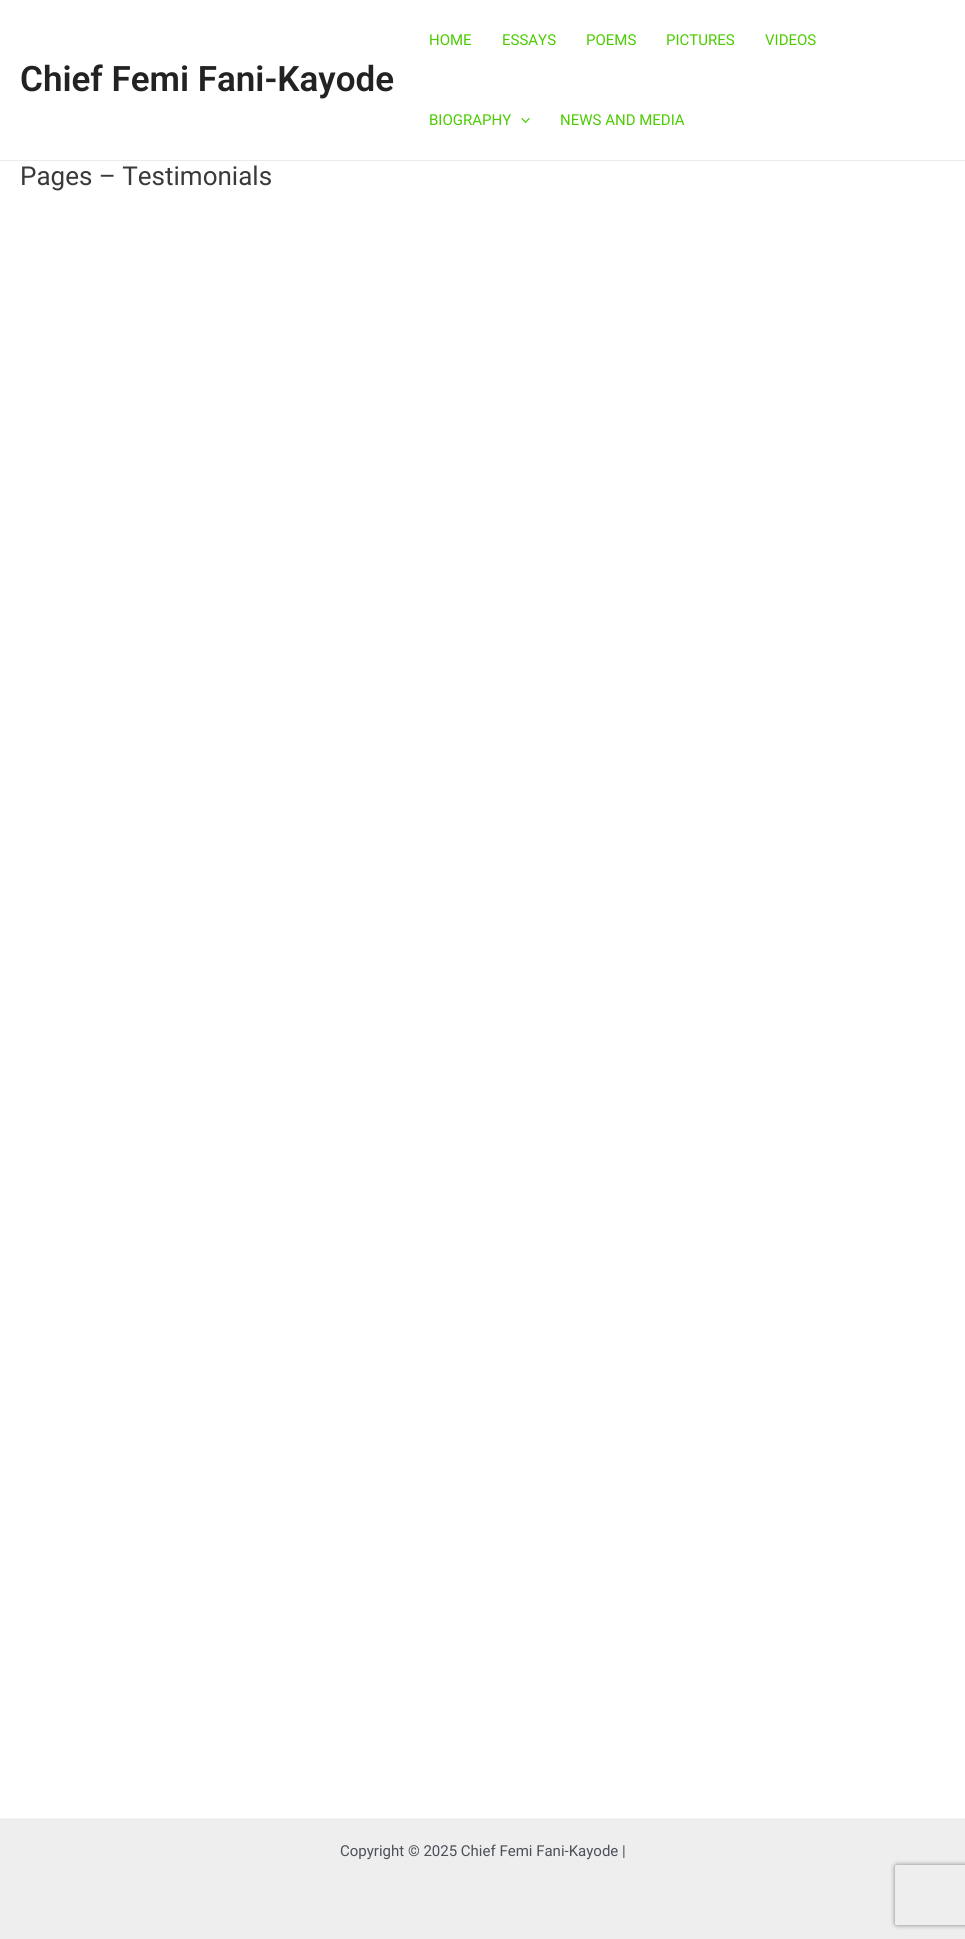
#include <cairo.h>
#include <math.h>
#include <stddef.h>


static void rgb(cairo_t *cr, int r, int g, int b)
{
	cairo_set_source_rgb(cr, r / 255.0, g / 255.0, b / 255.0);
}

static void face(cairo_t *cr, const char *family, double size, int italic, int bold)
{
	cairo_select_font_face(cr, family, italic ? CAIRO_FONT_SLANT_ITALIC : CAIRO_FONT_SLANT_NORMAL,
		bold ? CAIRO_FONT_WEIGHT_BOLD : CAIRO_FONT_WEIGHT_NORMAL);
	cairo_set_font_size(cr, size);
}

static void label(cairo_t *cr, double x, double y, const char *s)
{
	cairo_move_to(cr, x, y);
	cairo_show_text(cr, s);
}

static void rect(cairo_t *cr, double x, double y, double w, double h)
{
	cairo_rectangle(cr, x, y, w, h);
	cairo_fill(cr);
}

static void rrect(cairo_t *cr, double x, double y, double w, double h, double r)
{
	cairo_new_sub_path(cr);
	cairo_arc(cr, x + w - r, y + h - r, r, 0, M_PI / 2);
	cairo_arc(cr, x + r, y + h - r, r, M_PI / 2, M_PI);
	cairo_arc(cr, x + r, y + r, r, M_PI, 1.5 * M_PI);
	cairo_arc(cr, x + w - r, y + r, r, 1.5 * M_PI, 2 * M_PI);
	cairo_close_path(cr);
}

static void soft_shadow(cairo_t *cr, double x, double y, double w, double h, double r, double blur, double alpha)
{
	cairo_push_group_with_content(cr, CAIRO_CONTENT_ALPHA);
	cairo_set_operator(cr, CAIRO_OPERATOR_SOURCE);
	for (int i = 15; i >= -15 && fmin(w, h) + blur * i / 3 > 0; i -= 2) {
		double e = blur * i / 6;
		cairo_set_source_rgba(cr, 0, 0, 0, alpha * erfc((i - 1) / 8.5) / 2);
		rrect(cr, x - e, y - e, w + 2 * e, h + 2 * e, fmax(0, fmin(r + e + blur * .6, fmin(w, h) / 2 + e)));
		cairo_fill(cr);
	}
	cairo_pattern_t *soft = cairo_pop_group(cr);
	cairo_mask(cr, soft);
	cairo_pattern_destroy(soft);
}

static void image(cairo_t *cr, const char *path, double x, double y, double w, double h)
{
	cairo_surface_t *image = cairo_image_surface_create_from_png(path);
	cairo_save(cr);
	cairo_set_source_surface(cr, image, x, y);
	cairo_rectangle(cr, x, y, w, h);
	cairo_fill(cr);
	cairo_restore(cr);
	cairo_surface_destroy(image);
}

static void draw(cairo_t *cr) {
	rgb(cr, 255, 255, 255);
	cairo_paint(cr);
	rgb(cr, 234, 234, 234);
	rect(cr, 0, 160, 965, 1);
	face(cr, "Roboto SemiBold", 35, 0, 0);
	rgb(cr, 34, 34, 34);
	label(cr, 20, 91, "Chief Femi Fani-Kayode");
	face(cr, "Roboto", 15, 0, 0);
	rgb(cr, 75, 204, 1);
	label(cr, 429, 45, "HOME");
	label(cr, 502, 45, "ESSAYS");
	label(cr, 586, 45, "POEMS");
	label(cr, 666, 45, "PICTURES");
	label(cr, 765, 45, "VIDEOS");
	label(cr, 429, 125, "BIOGRAPHY");
	image(cr, "image0.png", 521, 118, 9, 5);
	label(cr, 560, 125, "NEWS AND MEDIA");
	face(cr, "Roboto", 26, 0, 0);
	rgb(cr, 58, 58, 58);
	label(cr, 20, 185, "Pages – Testimonials");
	rgb(cr, 238, 238, 238);
	rect(cr, 0, 1819, 965, 120);
	rgb(cr, 242, 245, 247);
	rect(cr, 0, 1818, 965, 1);
	face(cr, "Roboto", 15, 0, 0);
	rgb(cr, 75, 79, 88);
	label(cr, 340, 1856, "Copyright © 2025 Chief Femi Fani-Kayode |");
	cairo_save(cr);
	cairo_set_fill_rule(cr, CAIRO_FILL_RULE_EVEN_ODD);
	cairo_new_path(cr);
	cairo_move_to(cr, 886, 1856);
	cairo_line_to(cr, 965, 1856);
	cairo_line_to(cr, 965, 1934);
	cairo_line_to(cr, 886, 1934);
	cairo_close_path(cr);
	cairo_move_to(cr, 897, 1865);
	cairo_line_to(cr, 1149, 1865);
	cairo_curve_to(cr, 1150, 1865, 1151, 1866, 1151, 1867);
	cairo_line_to(cr, 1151, 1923);
	cairo_curve_to(cr, 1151, 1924, 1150, 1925, 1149, 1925);
	cairo_line_to(cr, 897, 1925);
	cairo_curve_to(cr, 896, 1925, 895, 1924, 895, 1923);
	cairo_line_to(cr, 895, 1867);
	cairo_curve_to(cr, 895, 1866, 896, 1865, 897, 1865);
	cairo_close_path(cr);
	cairo_clip(cr);
	rgb(cr, 128, 128, 128);
	soft_shadow(cr, 895, 1865, 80, 60, 2, 2.5, 1);
	cairo_restore(cr);
}

int main(void) {
	cairo_surface_t *surface = cairo_image_surface_create(CAIRO_FORMAT_RGB24, 965, 1939);
	cairo_t *cr = cairo_create(surface);
	cairo_font_options_t *options = cairo_font_options_create();
	cairo_font_options_set_hint_metrics(options, CAIRO_HINT_METRICS_OFF);
	cairo_font_options_set_hint_style(options, CAIRO_HINT_STYLE_NONE);
	cairo_set_font_options(cr, options);
	cairo_set_miter_limit(cr, 4);
	draw(cr);
	cairo_surface_write_to_png(surface, "render.png");
	cairo_font_options_destroy(options);
	cairo_destroy(cr);
	cairo_surface_destroy(surface);
	return 0;
}
